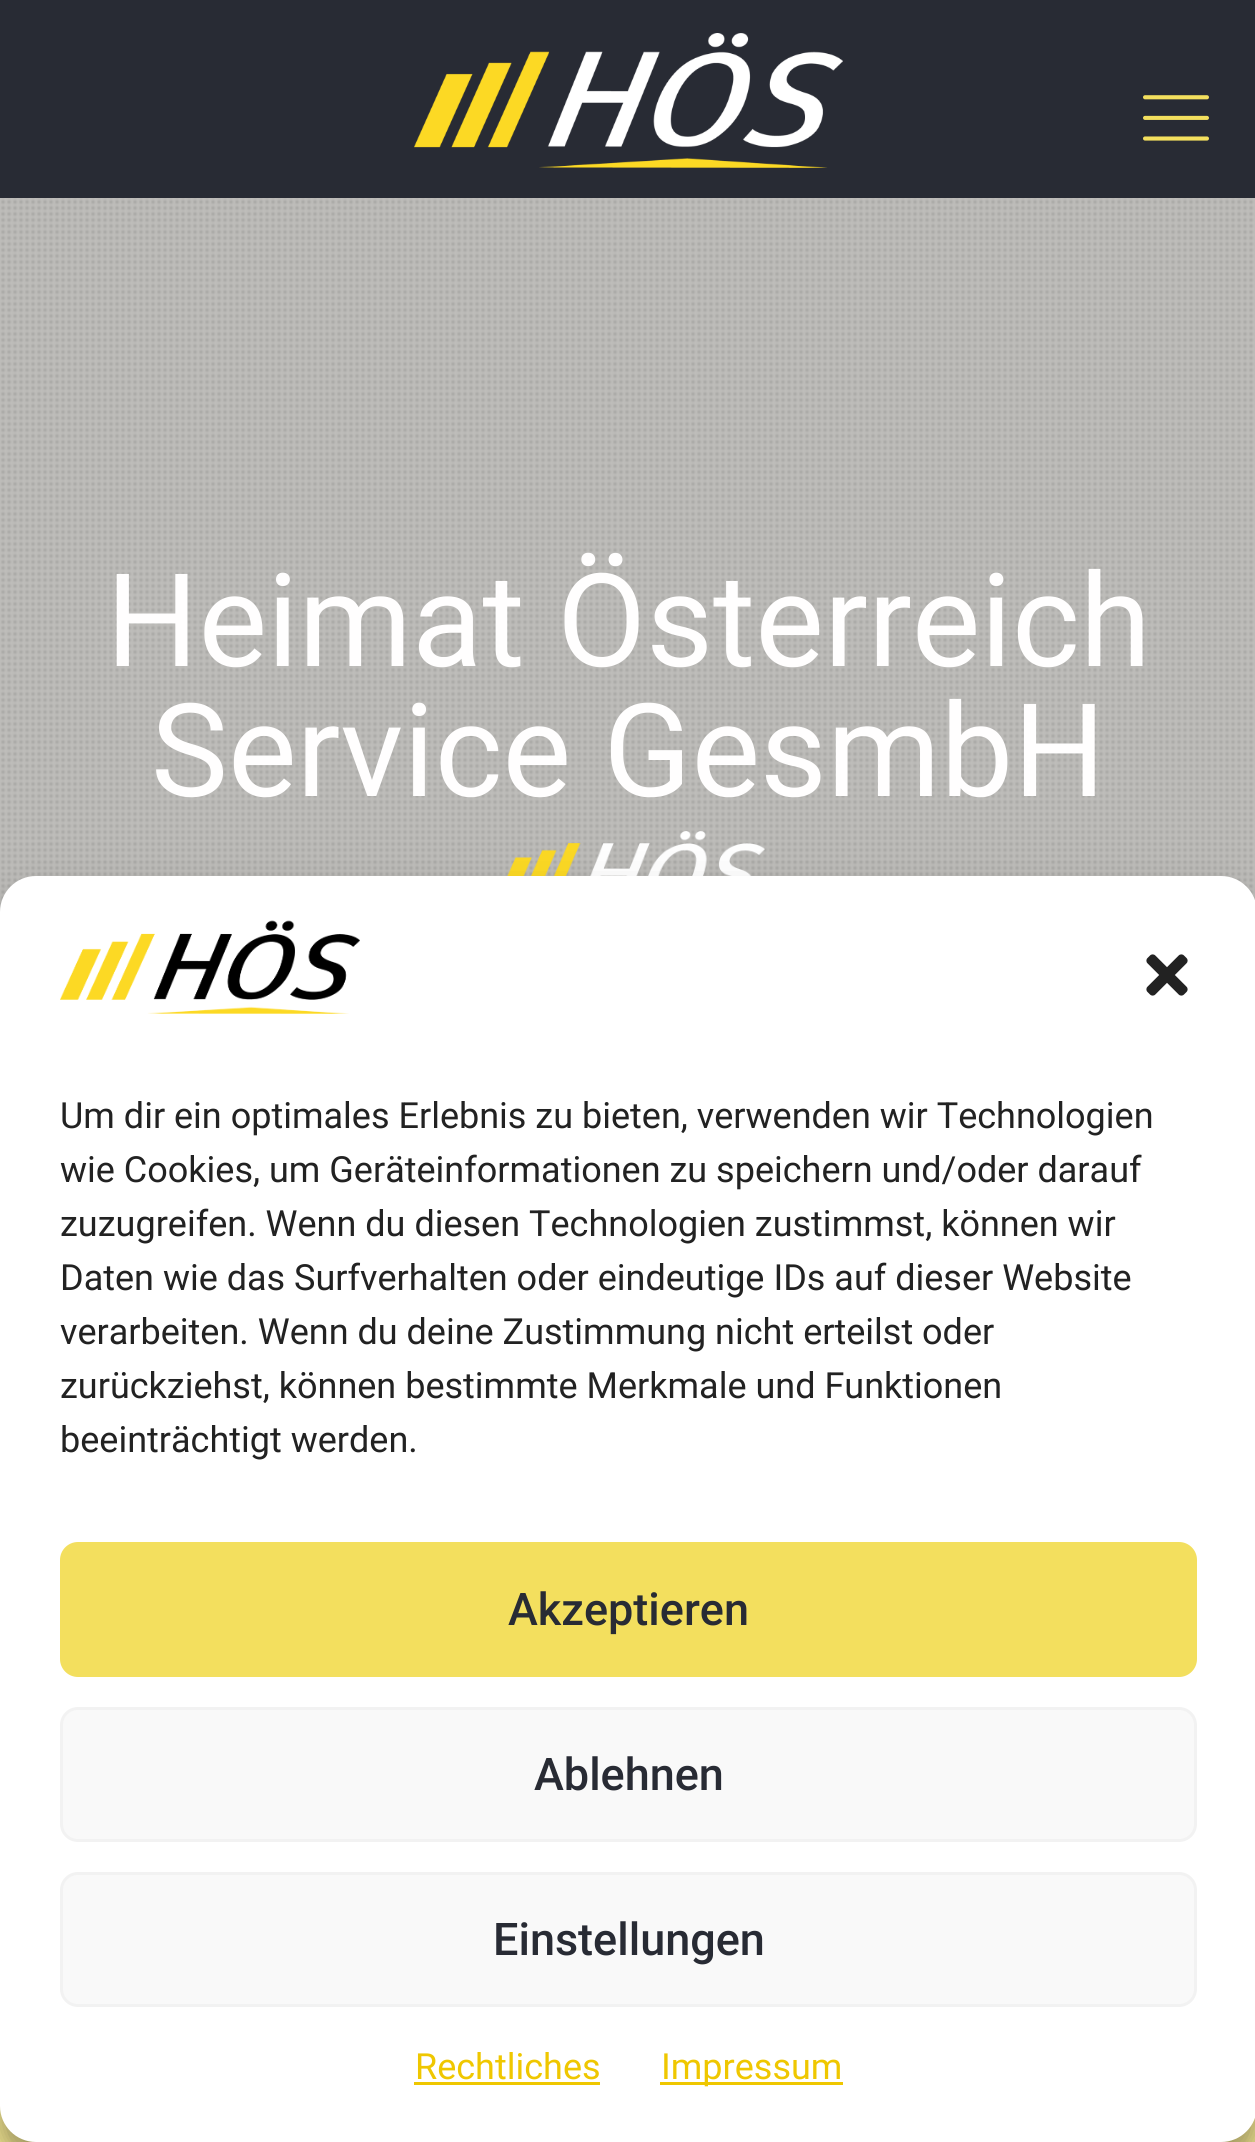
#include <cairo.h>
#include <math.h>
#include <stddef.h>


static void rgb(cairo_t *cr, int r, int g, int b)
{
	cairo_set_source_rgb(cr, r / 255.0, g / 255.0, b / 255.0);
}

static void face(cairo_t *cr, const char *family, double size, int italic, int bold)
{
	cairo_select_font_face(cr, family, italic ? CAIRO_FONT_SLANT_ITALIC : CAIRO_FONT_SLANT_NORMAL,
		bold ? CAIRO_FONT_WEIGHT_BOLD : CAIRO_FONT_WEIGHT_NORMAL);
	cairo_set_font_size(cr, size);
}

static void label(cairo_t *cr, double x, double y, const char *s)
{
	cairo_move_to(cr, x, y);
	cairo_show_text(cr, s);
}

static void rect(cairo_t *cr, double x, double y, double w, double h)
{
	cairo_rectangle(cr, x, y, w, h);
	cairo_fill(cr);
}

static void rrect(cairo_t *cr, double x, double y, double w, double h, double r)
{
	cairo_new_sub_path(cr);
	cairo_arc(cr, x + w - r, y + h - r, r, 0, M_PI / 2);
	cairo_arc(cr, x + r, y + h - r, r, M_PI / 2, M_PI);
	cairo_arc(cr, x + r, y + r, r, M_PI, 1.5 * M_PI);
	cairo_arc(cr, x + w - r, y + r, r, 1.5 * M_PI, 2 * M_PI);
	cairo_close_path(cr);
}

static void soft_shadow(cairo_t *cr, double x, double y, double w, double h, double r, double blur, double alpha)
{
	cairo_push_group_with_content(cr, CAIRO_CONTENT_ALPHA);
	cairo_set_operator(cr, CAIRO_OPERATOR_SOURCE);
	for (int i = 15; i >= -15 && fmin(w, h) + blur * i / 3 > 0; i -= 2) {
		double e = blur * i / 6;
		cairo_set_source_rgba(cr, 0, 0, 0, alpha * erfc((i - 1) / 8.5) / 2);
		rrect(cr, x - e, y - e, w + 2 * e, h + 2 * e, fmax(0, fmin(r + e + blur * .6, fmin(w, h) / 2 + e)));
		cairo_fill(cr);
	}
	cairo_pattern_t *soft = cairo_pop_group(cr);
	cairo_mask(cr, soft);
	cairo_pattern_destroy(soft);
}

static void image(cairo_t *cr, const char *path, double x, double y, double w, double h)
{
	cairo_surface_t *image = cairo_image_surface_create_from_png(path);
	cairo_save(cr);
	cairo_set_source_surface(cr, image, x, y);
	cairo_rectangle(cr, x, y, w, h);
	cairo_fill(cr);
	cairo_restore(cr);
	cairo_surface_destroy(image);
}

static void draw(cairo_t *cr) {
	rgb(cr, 190, 189, 186);
	cairo_paint(cr);
	rgb(cr, 40, 43, 52);
	rect(cr, 0, 0, 1255, 198);
	image(cr, "image0.png", 414, 33, 429, 135);
	image(cr, "image1.png", 1143, 95, 66, 46);
	image(cr, "image2.png", 0, 198, 1255, 713);
	face(cr, "Roboto", 129.5, 0, 0);
	rgb(cr, 255, 254, 254);
	label(cr, 106, 666, "Heimat Österreich");
	label(cr, 151, 796, "Service GesmbH");
	image(cr, "image3.png", 507, 831, 258, 45);
	rgb(cr, 251, 238, 151);
	rect(cr, 0, 2106, 1255, 36);
	rgb(cr, 0, 0, 0);
	soft_shadow(cr, 0, 894, 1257, 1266, 36, 9, 0.23);
	soft_shadow(cr, 0, 906, 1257, 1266, 36, 30, 0.19);
	rgb(cr, 255, 255, 255);
	rrect(cr, 0, 876, 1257, 1266, 36);
	cairo_fill(cr);
	image(cr, "image4.png", 60, 920, 300, 94);
	image(cr, "image5.png", 1146, 954, 42, 42);
	face(cr, "Roboto", 36, 0, 0);
	rgb(cr, 34, 34, 34);
	label(cr, 60, 1128, "Um dir ein optimales Erlebnis zu bieten, verwenden wir Technologien");
	label(cr, 60, 1182, "wie Cookies, um Geräteinformationen zu speichern und/oder darauf");
	label(cr, 60, 1236, "zuzugreifen. Wenn du diesen Technologien zustimmst, können wir");
	label(cr, 60, 1290, "Daten wie das Surfverhalten oder eindeutige IDs auf dieser Website");
	label(cr, 60, 1344, "verarbeiten. Wenn du deine Zustimmung nicht erteilst oder");
	label(cr, 60, 1398, "zurückziehst, können bestimmte Merkmale und Funktionen");
	label(cr, 60, 1452, "beeinträchtigt werden.");
	rgb(cr, 243, 223, 94);
	rrect(cr, 61.5, 1543.5, 1134, 132, 16.5);
	cairo_fill_preserve(cr);
	cairo_set_line_width(cr, 3);
	cairo_stroke(cr);
	face(cr, "Roboto Medium", 45, 0, 0);
	rgb(cr, 40, 43, 52);
	label(cr, 508, 1625, "Akzeptieren");
	rgb(cr, 249, 249, 249);
	rrect(cr, 61.5, 1708.5, 1134, 132, 16.5);
	cairo_fill_preserve(cr);
	rgb(cr, 242, 242, 242);
	cairo_stroke(cr);
	rgb(cr, 40, 43, 52);
	label(cr, 534, 1790, "Ablehnen");
	rgb(cr, 249, 249, 249);
	rrect(cr, 61.5, 1873.5, 1134, 132, 16.5);
	cairo_fill_preserve(cr);
	rgb(cr, 242, 242, 242);
	cairo_stroke(cr);
	rgb(cr, 40, 43, 52);
	label(cr, 493, 1955, "Einstellungen");
	face(cr, "Roboto", 36, 0, 0);
	rgb(cr, 239, 199, 0);
	label(cr, 415, 2079, "Rechtliches");
	rect(cr, 414, 2082, 186, 3);
	rect(cr, 660, 2082, 183, 3);
	label(cr, 661, 2079, "Impressum");
}

int main(void) {
	cairo_surface_t *surface = cairo_image_surface_create(CAIRO_FORMAT_RGB24, 1255, 2142);
	cairo_t *cr = cairo_create(surface);
	cairo_font_options_t *options = cairo_font_options_create();
	cairo_font_options_set_hint_metrics(options, CAIRO_HINT_METRICS_OFF);
	cairo_font_options_set_hint_style(options, CAIRO_HINT_STYLE_NONE);
	cairo_set_font_options(cr, options);
	cairo_set_miter_limit(cr, 4);
	draw(cr);
	cairo_surface_write_to_png(surface, "render.png");
	cairo_font_options_destroy(options);
	cairo_destroy(cr);
	cairo_surface_destroy(surface);
	return 0;
}
